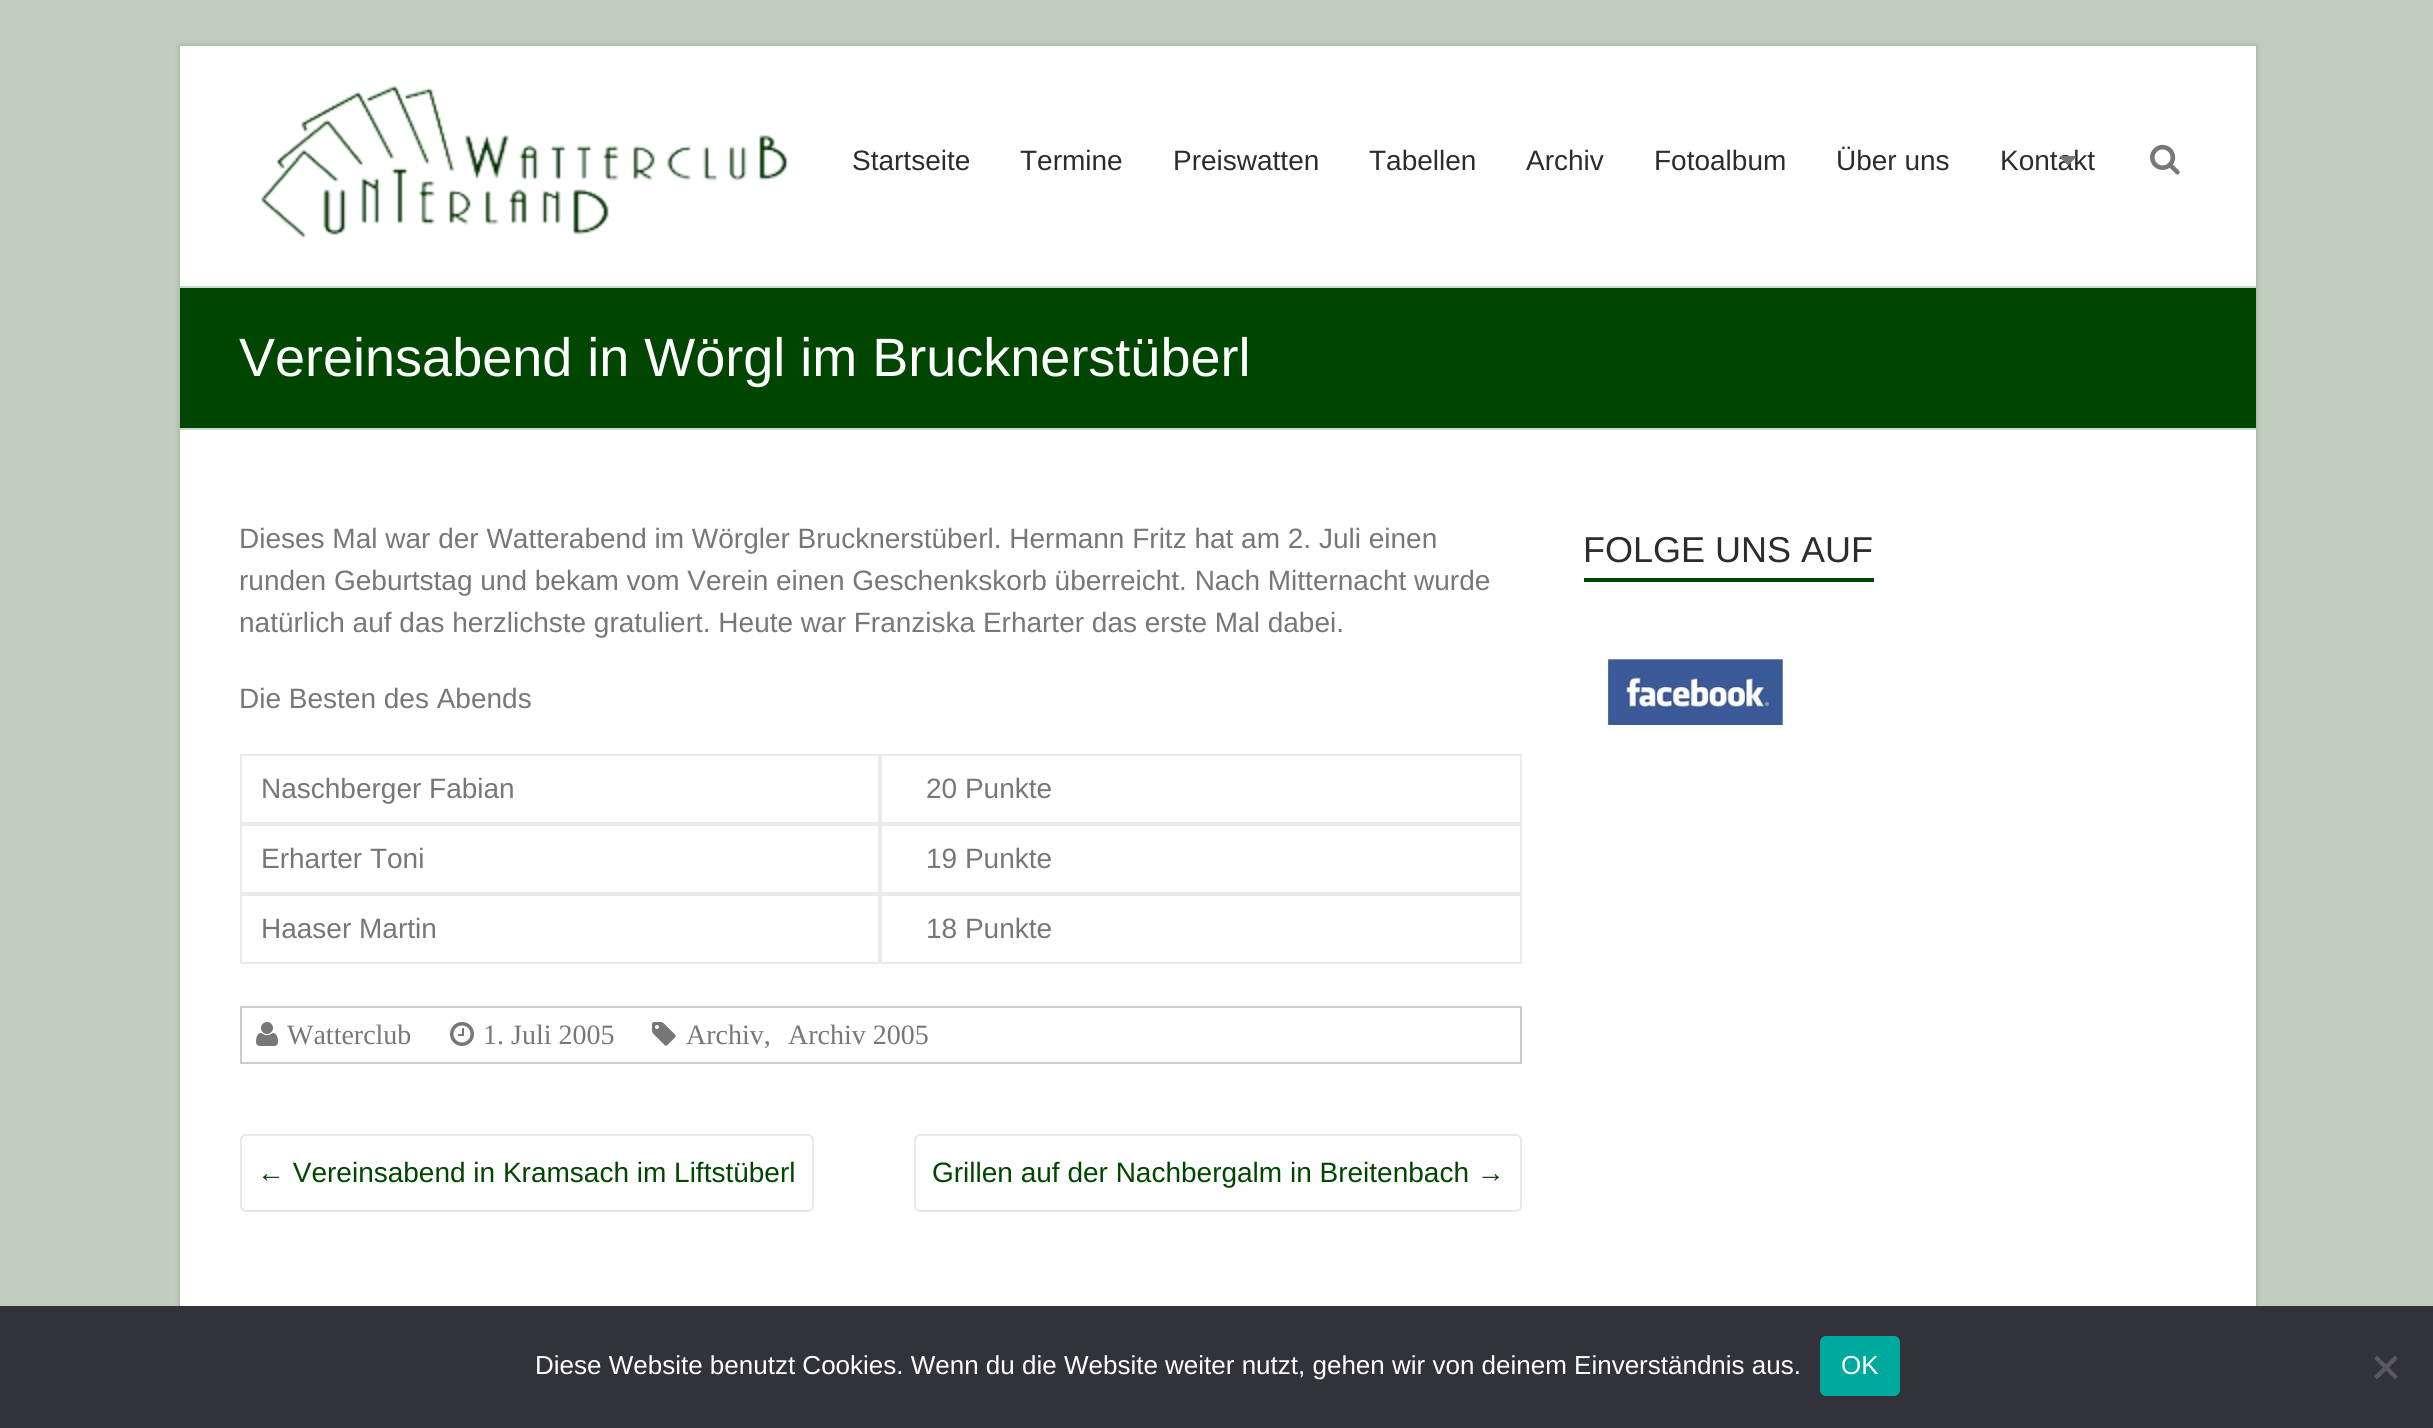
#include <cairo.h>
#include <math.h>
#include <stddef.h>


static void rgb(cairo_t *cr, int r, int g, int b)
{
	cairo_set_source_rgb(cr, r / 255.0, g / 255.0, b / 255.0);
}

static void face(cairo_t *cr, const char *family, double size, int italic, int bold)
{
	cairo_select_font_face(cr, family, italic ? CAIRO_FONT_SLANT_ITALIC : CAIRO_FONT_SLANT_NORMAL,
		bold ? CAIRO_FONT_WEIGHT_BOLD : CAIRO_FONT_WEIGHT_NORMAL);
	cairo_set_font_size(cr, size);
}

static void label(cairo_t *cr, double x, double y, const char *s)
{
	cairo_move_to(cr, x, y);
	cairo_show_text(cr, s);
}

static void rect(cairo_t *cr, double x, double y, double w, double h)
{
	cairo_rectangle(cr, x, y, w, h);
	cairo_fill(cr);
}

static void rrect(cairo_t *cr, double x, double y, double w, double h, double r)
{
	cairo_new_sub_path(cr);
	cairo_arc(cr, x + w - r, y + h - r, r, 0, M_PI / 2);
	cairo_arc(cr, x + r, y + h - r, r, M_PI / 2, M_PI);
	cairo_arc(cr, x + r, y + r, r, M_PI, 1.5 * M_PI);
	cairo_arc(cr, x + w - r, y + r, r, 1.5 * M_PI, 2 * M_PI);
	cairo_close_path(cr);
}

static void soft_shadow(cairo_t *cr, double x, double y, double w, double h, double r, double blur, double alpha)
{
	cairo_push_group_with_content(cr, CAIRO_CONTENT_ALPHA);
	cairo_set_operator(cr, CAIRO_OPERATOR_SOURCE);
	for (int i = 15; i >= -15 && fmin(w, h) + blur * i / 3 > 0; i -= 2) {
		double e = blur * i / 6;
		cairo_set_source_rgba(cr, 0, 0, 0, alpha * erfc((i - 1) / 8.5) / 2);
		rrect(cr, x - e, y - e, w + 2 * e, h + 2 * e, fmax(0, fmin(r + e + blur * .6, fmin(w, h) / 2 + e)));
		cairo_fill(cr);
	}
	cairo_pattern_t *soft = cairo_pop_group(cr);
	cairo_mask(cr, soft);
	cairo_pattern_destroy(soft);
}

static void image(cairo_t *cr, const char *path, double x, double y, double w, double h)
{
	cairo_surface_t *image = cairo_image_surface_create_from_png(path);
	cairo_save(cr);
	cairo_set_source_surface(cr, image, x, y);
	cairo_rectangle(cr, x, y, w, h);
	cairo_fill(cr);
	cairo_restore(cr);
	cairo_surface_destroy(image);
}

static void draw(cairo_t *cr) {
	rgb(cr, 191, 205, 190);
	cairo_paint(cr);
	rgb(cr, 0, 0, 0);
	soft_shadow(cr, 180, 46, 2076, 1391, 0, 3, 0.2);
	rgb(cr, 255, 255, 255);
	rect(cr, 180, 46, 2076, 1260);
	image(cr, "image0.png", 260, 85, 529, 154);
	face(cr, "Liberation Sans", 28, 0, 0);
	rgb(cr, 44, 44, 44);
	label(cr, 852, 170, "Startseite");
	label(cr, 1020, 170, "Termine");
	label(cr, 1173, 170, "Preiswatten");
	label(cr, 1369, 170, "Tabellen");
	label(cr, 1526, 170, "Archiv");
	label(cr, 1654, 170, "Fotoalbum");
	label(cr, 1836, 170, "Über uns");
	label(cr, 2000, 170, "Kontakt");
	image(cr, "image1.png", 2060, 156, 16, 9);
	image(cr, "image2.png", 2150, 144, 30, 31);
	rgb(cr, 0, 70, 0);
	rect(cr, 180, 288, 2076, 140);
	rgb(cr, 204, 218, 204);
	rect(cr, 180, 286, 2076, 2);
	rect(cr, 180, 428, 2076, 2);
	face(cr, "Liberation Sans", 54, 0, 0);
	rgb(cr, 255, 255, 255);
	label(cr, 239, 376, "Vereinsabend in Wörgl im Brucknerstüberl");
	face(cr, "Liberation Sans", 28, 0, 0);
	rgb(cr, 119, 119, 119);
	label(cr, 239, 548, "Dieses Mal war der Watterabend im Wörgler Brucknerstüberl. Hermann Fritz hat am 2. Juli einen");
	label(cr, 239, 590, "runden Geburtstag und bekam vom Verein einen Geschenkskorb überreicht. Nach Mitternacht wurde");
	label(cr, 239, 632, "natürlich auf das herzlichste gratuliert. Heute war Franziska Erharter das erste Mal dabei.");
	label(cr, 239, 708, "Die Besten des Abends");
	cairo_rectangle(cr, 241, 755, 638, 68);
	rgb(cr, 234, 234, 234);
	cairo_stroke(cr);
	rgb(cr, 119, 119, 119);
	label(cr, 261, 798, "Naschberger Fabian");
	cairo_rectangle(cr, 881, 755, 640, 68);
	rgb(cr, 234, 234, 234);
	cairo_stroke(cr);
	rgb(cr, 119, 119, 119);
	label(cr, 926, 798, "20 Punkte");
	cairo_rectangle(cr, 241, 825, 638, 68);
	rgb(cr, 234, 234, 234);
	cairo_stroke(cr);
	rgb(cr, 119, 119, 119);
	label(cr, 261, 868, "Erharter Toni");
	cairo_rectangle(cr, 881, 825, 640, 68);
	rgb(cr, 234, 234, 234);
	cairo_stroke(cr);
	rgb(cr, 119, 119, 119);
	label(cr, 926, 868, "19 Punkte");
	cairo_rectangle(cr, 241, 895, 638, 68);
	rgb(cr, 234, 234, 234);
	cairo_stroke(cr);
	rgb(cr, 119, 119, 119);
	label(cr, 261, 938, "Haaser Martin");
	cairo_rectangle(cr, 881, 895, 640, 68);
	rgb(cr, 234, 234, 234);
	cairo_stroke(cr);
	rgb(cr, 119, 119, 119);
	label(cr, 926, 938, "18 Punkte");
	cairo_rectangle(cr, 241, 1007, 1280, 56);
	rgb(cr, 204, 204, 204);
	cairo_stroke(cr);
	image(cr, "image3.png", 256, 1022, 22, 24);
	face(cr, "Liberation Serif", 28, 0, 0);
	rgb(cr, 119, 119, 119);
	label(cr, 287, 1044, "Watterclub");
	image(cr, "image4.png", 450, 1022, 24, 24);
	label(cr, 483, 1044, "1. Juli 2005");
	image(cr, "image5.png", 652, 1022, 24, 24);
	label(cr, 686, 1044, "Archiv,");
	label(cr, 788, 1044, "Archiv 2005");
	rrect(cr, 241, 1135, 572, 76, 5);
	rgb(cr, 232, 232, 232);
	cairo_stroke(cr);
	face(cr, "Liberation Sans", 28, 0, 0);
	rgb(cr, 0, 70, 0);
	label(cr, 257, 1182, "← Vereinsabend in Kramsach im Liftstüberl");
	rrect(cr, 915, 1135, 606, 76, 5);
	rgb(cr, 232, 232, 232);
	cairo_stroke(cr);
	rgb(cr, 0, 70, 0);
	label(cr, 932, 1182, "Grillen auf der Nachbergalm in Breitenbach →");
	face(cr, "Liberation Sans", 36, 0, 0);
	rgb(cr, 44, 44, 44);
	label(cr, 1583, 562, "FOLGE UNS AUF");
	rgb(cr, 0, 70, 0);
	rect(cr, 1584, 578, 290, 4);
	image(cr, "image6.png", 1605, 656, 186, 75);
	rgb(cr, 50, 50, 58);
	rect(cr, 0, 1306, 2433, 122);
	face(cr, "Liberation Sans", 26, 0, 0);
	rgb(cr, 255, 255, 255);
	label(cr, 535, 1374, "Diese Website benutzt Cookies. Wenn du die Website weiter nutzt, gehen wir von deinem Einverständnis aus.");
	rgb(cr, 0, 169, 157);
	rrect(cr, 1820, 1336, 80, 60, 6);
	cairo_fill(cr);
	rgb(cr, 255, 255, 255);
	label(cr, 1841, 1374, "OK");
	rgb(cr, 89, 89, 93);
	cairo_new_path(cr);
	cairo_move_to(cr, 2395, 1355.5);
	cairo_line_to(cr, 2398, 1358.5);
	cairo_line_to(cr, 2377, 1379.5);
	cairo_line_to(cr, 2374, 1376.5);
	cairo_close_path(cr);
	cairo_fill(cr);
	cairo_new_path(cr);
	cairo_move_to(cr, 2374, 1358.5);
	cairo_line_to(cr, 2377, 1355.5);
	cairo_line_to(cr, 2398, 1376.5);
	cairo_line_to(cr, 2395, 1379.5);
	cairo_close_path(cr);
	cairo_fill(cr);
}

int main(void) {
	cairo_surface_t *surface = cairo_image_surface_create(CAIRO_FORMAT_RGB24, 2433, 1428);
	cairo_t *cr = cairo_create(surface);
	cairo_font_options_t *options = cairo_font_options_create();
	cairo_font_options_set_hint_metrics(options, CAIRO_HINT_METRICS_OFF);
	cairo_font_options_set_hint_style(options, CAIRO_HINT_STYLE_NONE);
	cairo_set_font_options(cr, options);
	cairo_set_miter_limit(cr, 4);
	draw(cr);
	cairo_surface_write_to_png(surface, "render.png");
	cairo_font_options_destroy(options);
	cairo_destroy(cr);
	cairo_surface_destroy(surface);
	return 0;
}
